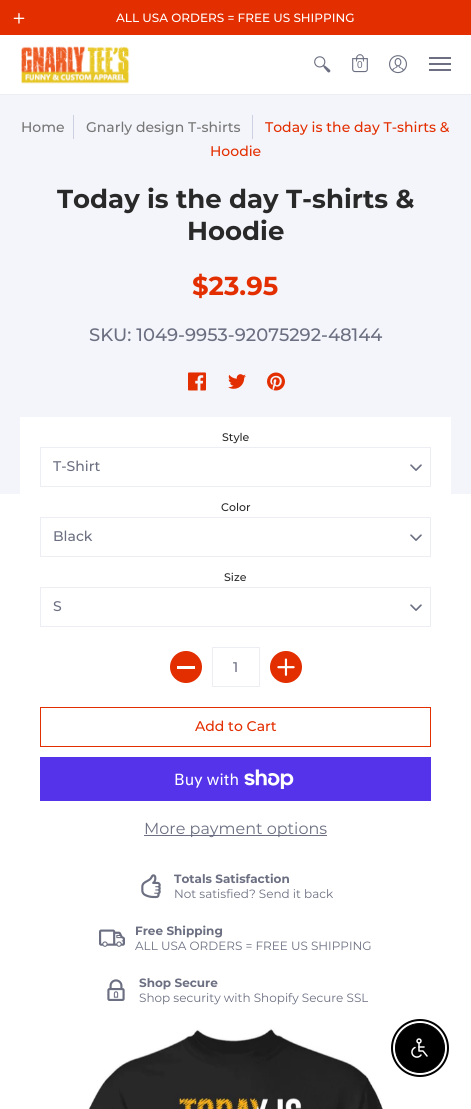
#include <cairo.h>
#include <math.h>
#include <stddef.h>


static void rgb(cairo_t *cr, int r, int g, int b)
{
	cairo_set_source_rgb(cr, r / 255.0, g / 255.0, b / 255.0);
}

static void face(cairo_t *cr, const char *family, double size, int italic, int bold)
{
	cairo_select_font_face(cr, family, italic ? CAIRO_FONT_SLANT_ITALIC : CAIRO_FONT_SLANT_NORMAL,
		bold ? CAIRO_FONT_WEIGHT_BOLD : CAIRO_FONT_WEIGHT_NORMAL);
	cairo_set_font_size(cr, size);
}

static void label(cairo_t *cr, double x, double y, const char *s)
{
	cairo_move_to(cr, x, y);
	cairo_show_text(cr, s);
}

static void rect(cairo_t *cr, double x, double y, double w, double h)
{
	cairo_rectangle(cr, x, y, w, h);
	cairo_fill(cr);
}

static void image(cairo_t *cr, const char *path, double x, double y, double w, double h)
{
	cairo_surface_t *image = cairo_image_surface_create_from_png(path);
	cairo_save(cr);
	cairo_set_source_surface(cr, image, x, y);
	cairo_rectangle(cr, x, y, w, h);
	cairo_fill(cr);
	cairo_restore(cr);
	cairo_surface_destroy(image);
}

static void draw(cairo_t *cr) {
	rgb(cr, 255, 255, 255);
	cairo_paint(cr);
	rgb(cr, 227, 46, 0);
	rect(cr, 0, 0, 471, 35);
	image(cr, "image0.png", 13, 13, 12, 11);
	face(cr, "Montserrat Medium", 12, 0, 0);
	rgb(cr, 255, 255, 255);
	label(cr, 116, 22, "ALL USA ORDERS = FREE US SHIPPING");
	rgb(cr, 237, 238, 244);
	rect(cr, 0, 94, 471, 1);
	image(cr, "image1.png", 21, 46, 109, 38);
	image(cr, "image2.png", 314, 56, 17, 17);
	image(cr, "image3.png", 352, 54, 16, 19);
	rgb(cr, 255, 255, 255);
	rect(cr, 357, 60, 6, 10);
	face(cr, "Liberation Sans", 10, 0, 0);
	rgb(cr, 107, 111, 129);
	label(cr, 357, 68, "0");
	image(cr, "image4.png", 389, 55, 18, 19);
	rect(cr, 429, 57, 22, 2);
	rect(cr, 429, 69, 22, 2);
	rect(cr, 429, 63, 22, 2);
	rgb(cr, 244, 245, 250);
	rect(cr, 0, 95, 471, 399);
	face(cr, "Montserrat Medium", 14, 0, 0);
	rgb(cr, 118, 118, 118);
	label(cr, 21, 132, "Home");
	rgb(cr, 205, 208, 225);
	rect(cr, 73, 115, 1, 24);
	rgb(cr, 118, 118, 118);
	label(cr, 86, 132, "Gnarly design T-shirts");
	rgb(cr, 205, 208, 225);
	rect(cr, 252, 115, 1, 24);
	rgb(cr, 227, 46, 0);
	label(cr, 265, 132, "Today is the day T-shirts &");
	label(cr, 210, 156, "Hoodie");
	face(cr, "Montserrat", 26, 0, 1);
	rgb(cr, 41, 41, 41);
	label(cr, 57, 208, "Today is the day T-shirts &");
	label(cr, 187, 240, "Hoodie");
	rgb(cr, 227, 46, 0);
	label(cr, 192, 295, "$23.95");
	face(cr, "Montserrat Medium", 18, 0, 0);
	rgb(cr, 107, 111, 129);
	label(cr, 89, 341, "SKU: 1049-9953-92075292-48144");
	image(cr, "image5.png", 188, 372, 18, 19);
	image(cr, "image6.png", 228, 374, 18, 15);
	image(cr, "image7.png", 267, 372, 18, 19);
	rgb(cr, 255, 255, 255);
	rect(cr, 20, 417, 431, 77);
	face(cr, "Montserrat Medium", 11, 0, 0);
	rgb(cr, 41, 41, 41);
	label(cr, 222, 441, "Style");
	image(cr, "image8.png", 410, 464, 12, 7);
	cairo_rectangle(cr, 40.5, 447.5, 390, 39);
	rgb(cr, 237, 238, 244);
	cairo_set_line_width(cr, 1);
	cairo_stroke(cr);
	face(cr, "Montserrat Medium", 14, 0, 0);
	rgb(cr, 107, 111, 129);
	label(cr, 53, 471, "T-Shirt");
	face(cr, "Montserrat Medium", 11, 0, 0);
	rgb(cr, 41, 41, 41);
	label(cr, 221, 511, "Color");
	image(cr, "image8.png", 410, 534, 12, 7);
	cairo_rectangle(cr, 40.5, 517.5, 390, 39);
	rgb(cr, 237, 238, 244);
	cairo_stroke(cr);
	face(cr, "Montserrat Medium", 14, 0, 0);
	rgb(cr, 107, 111, 129);
	label(cr, 53, 541, "Black");
	face(cr, "Montserrat Medium", 11, 0, 0);
	rgb(cr, 41, 41, 41);
	label(cr, 224, 581, "Size");
	image(cr, "image8.png", 410, 604, 12, 7);
	cairo_rectangle(cr, 40.5, 587.5, 390, 39);
	rgb(cr, 237, 238, 244);
	cairo_stroke(cr);
	face(cr, "Montserrat Medium", 14, 0, 0);
	rgb(cr, 107, 111, 129);
	label(cr, 53, 611, "S");
	rgb(cr, 227, 46, 0);
	cairo_new_path(cr);
	cairo_arc(cr, 186, 667, 16, 0, 2 * M_PI);
	cairo_fill(cr);
	rgb(cr, 255, 255, 255);
	rect(cr, 177, 666, 18, 3);
	cairo_rectangle(cr, 212.5, 647.5, 47, 39);
	rgb(cr, 237, 238, 244);
	cairo_stroke(cr);
	rgb(cr, 107, 111, 129);
	label(cr, 233, 672, "1");
	rgb(cr, 227, 46, 0);
	cairo_new_path(cr);
	cairo_arc(cr, 286, 667, 16, 0, 2 * M_PI);
	cairo_fill(cr);
	image(cr, "image9.png", 277, 658, 18, 18);
	cairo_rectangle(cr, 40.5, 707.5, 390, 39);
	cairo_stroke(cr);
	label(cr, 195, 731, "Add to Cart");
	rgb(cr, 84, 51, 235);
	rect(cr, 40, 757, 391, 44);
	face(cr, "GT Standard", 16, 0, 0);
	rgb(cr, 255, 255, 255);
	label(cr, 174, 785, "Buy with");
	image(cr, "image10.png", 244, 769, 50, 20);
	rgb(cr, 107, 111, 129);
	rect(cr, 144, 835, 183, 1);
	face(cr, "Montserrat", 16, 0, 0);
	label(cr, 144, 834, "More payment options");
	image(cr, "image11.png", 141, 874, 20, 25);
	face(cr, "Montserrat", 12, 0, 1);
	label(cr, 174, 883, "Totals Satisfaction");
	face(cr, "Montserrat", 12, 0, 0);
	label(cr, 174, 898, "Not satisfied? Send it back");
	image(cr, "image12.png", 99, 929, 26, 18);
	face(cr, "Montserrat", 12, 0, 1);
	label(cr, 135, 935, "Free Shipping");
	face(cr, "Montserrat", 12, 0, 0);
	label(cr, 135, 950, "ALL USA ORDERS = FREE US SHIPPING");
	image(cr, "image13.png", 107, 979, 18, 22);
	face(cr, "Montserrat", 12, 0, 1);
	label(cr, 139, 987, "Shop Secure");
	face(cr, "Montserrat", 12, 0, 0);
	label(cr, 139, 1002, "Shop security with Shopify Secure SSL");
	image(cr, "image14.png", 88, 1028, 295, 81);
	cairo_arc(cr, 420, 1048, 28, 0, 2 * M_PI);
	rgb(cr, 0, 0, 0);
	cairo_set_line_width(cr, 2);
	cairo_stroke(cr);
	cairo_arc(cr, 420, 1048, 24.5, 0, 2 * M_PI);
	cairo_fill_preserve(cr);
	cairo_set_line_width(cr, 1);
	cairo_stroke(cr);
	image(cr, "image15.png", 411, 1038, 17, 20);
}

int main(void) {
	cairo_surface_t *surface = cairo_image_surface_create(CAIRO_FORMAT_RGB24, 471, 1109);
	cairo_t *cr = cairo_create(surface);
	cairo_font_options_t *options = cairo_font_options_create();
	cairo_font_options_set_hint_metrics(options, CAIRO_HINT_METRICS_OFF);
	cairo_font_options_set_hint_style(options, CAIRO_HINT_STYLE_NONE);
	cairo_set_font_options(cr, options);
	cairo_set_miter_limit(cr, 4);
	draw(cr);
	cairo_surface_write_to_png(surface, "render.png");
	cairo_font_options_destroy(options);
	cairo_destroy(cr);
	cairo_surface_destroy(surface);
	return 0;
}
